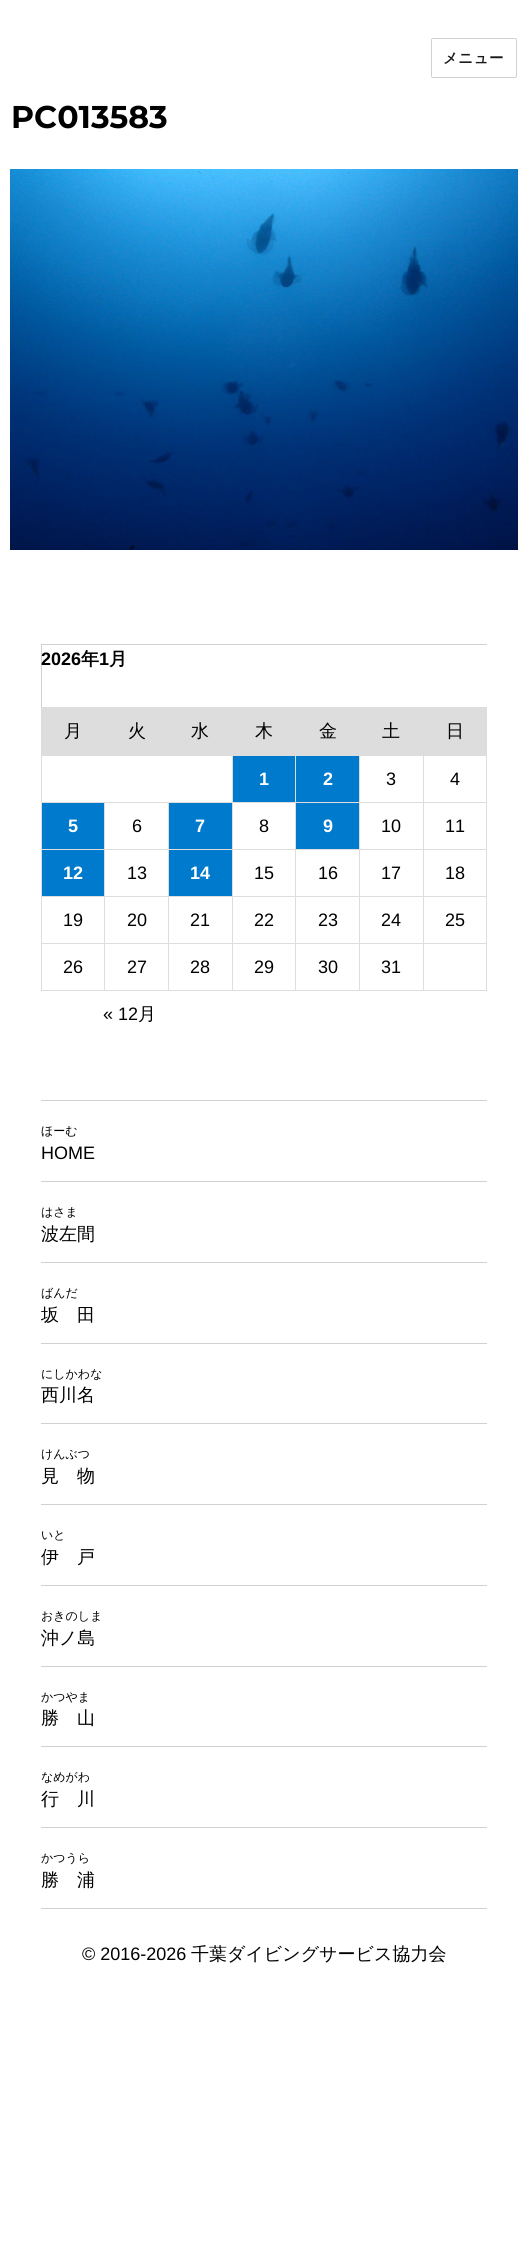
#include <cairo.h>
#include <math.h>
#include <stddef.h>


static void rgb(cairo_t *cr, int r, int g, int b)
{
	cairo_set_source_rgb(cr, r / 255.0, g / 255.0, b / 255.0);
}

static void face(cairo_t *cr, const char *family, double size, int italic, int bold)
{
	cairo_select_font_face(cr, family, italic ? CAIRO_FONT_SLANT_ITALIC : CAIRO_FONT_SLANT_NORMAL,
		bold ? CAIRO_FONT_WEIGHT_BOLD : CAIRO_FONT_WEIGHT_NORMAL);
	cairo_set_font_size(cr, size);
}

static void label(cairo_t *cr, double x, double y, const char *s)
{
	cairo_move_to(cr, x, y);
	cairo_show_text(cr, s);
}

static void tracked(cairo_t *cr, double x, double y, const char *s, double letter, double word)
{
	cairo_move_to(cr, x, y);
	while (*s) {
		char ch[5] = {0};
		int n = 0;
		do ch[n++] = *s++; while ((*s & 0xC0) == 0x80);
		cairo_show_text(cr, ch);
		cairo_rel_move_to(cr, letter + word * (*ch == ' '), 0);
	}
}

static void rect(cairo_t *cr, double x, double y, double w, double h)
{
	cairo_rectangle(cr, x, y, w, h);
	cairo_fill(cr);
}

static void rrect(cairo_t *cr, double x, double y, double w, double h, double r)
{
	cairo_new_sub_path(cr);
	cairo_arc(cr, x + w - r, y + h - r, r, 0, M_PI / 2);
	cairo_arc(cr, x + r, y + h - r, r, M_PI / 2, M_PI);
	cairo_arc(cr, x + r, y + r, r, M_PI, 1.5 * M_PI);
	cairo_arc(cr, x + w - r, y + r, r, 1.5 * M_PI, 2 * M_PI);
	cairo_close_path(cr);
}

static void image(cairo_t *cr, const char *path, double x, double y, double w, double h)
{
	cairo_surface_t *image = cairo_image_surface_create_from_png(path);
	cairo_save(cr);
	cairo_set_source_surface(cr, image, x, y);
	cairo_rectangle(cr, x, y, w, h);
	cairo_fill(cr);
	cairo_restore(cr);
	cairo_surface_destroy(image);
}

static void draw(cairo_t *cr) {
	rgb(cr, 255, 255, 255);
	cairo_paint(cr);
	rrect(cr, 431.5, 38.5, 85, 39, 1.5);
	rgb(cr, 209, 209, 209);
	cairo_set_line_width(cr, 1);
	cairo_stroke(cr);
	face(cr, "WenQuanYi Zen Hei", 14.5, 0, 1);
	rgb(cr, 26, 26, 26);
	tracked(cr, 443, 63, "メニュー", 0.5, 0);
	face(cr, "Montserrat Thin", 31.5, 0, 0);
	rgb(cr, 0, 0, 0);
	label(cr, 11, 128, "PC013583");
	image(cr, "image0.png", 10, 169, 508, 381);
	rgb(cr, 209, 209, 209);
	rect(cr, 41, 644, 446, 1);
	rect(cr, 41, 644, 1, 63);
	face(cr, "Liberation Sans", 18, 0, 1);
	rgb(cr, 0, 0, 0);
	label(cr, 41, 665, "2026");
	face(cr, "WenQuanYi Zen Hei", 18, 0, 1);
	label(cr, 81, 665, "年");
	face(cr, "Liberation Sans", 18, 0, 1);
	label(cr, 99, 665, "1");
	face(cr, "WenQuanYi Zen Hei", 18, 0, 1);
	label(cr, 109, 665, "月");
	rgb(cr, 221, 221, 221);
	rect(cr, 42, 708, 445, 47);
	rect(cr, 41, 707, 446, 1);
	rect(cr, 423, 755, 64, 1);
	rect(cr, 423, 802, 64, 1);
	rect(cr, 423, 849, 64, 1);
	rect(cr, 423, 896, 64, 1);
	rect(cr, 423, 943, 64, 1);
	rect(cr, 486, 943, 1, 48);
	rect(cr, 423, 990, 64, 1);
	rect(cr, 423, 943, 1, 48);
	rect(cr, 359, 943, 65, 1);
	rect(cr, 423, 896, 1, 48);
	rect(cr, 359, 896, 65, 1);
	rect(cr, 423, 849, 1, 48);
	rect(cr, 359, 849, 65, 1);
	rect(cr, 423, 802, 1, 48);
	rect(cr, 359, 802, 65, 1);
	rect(cr, 423, 755, 1, 48);
	rect(cr, 359, 755, 65, 1);
	rect(cr, 359, 990, 65, 1);
	rect(cr, 359, 943, 1, 48);
	rect(cr, 295, 943, 65, 1);
	rect(cr, 359, 896, 1, 48);
	rect(cr, 295, 896, 65, 1);
	rect(cr, 359, 849, 1, 48);
	rect(cr, 295, 849, 65, 1);
	rect(cr, 359, 802, 1, 48);
	rect(cr, 295, 802, 65, 1);
	rect(cr, 359, 755, 1, 48);
	rect(cr, 295, 755, 65, 1);
	rect(cr, 295, 990, 65, 1);
	rect(cr, 295, 943, 1, 48);
	rect(cr, 232, 943, 64, 1);
	rect(cr, 295, 896, 1, 48);
	rect(cr, 232, 896, 64, 1);
	rect(cr, 295, 849, 1, 48);
	rect(cr, 232, 849, 64, 1);
	rect(cr, 295, 802, 1, 48);
	rect(cr, 232, 802, 64, 1);
	rect(cr, 295, 755, 1, 48);
	rect(cr, 232, 755, 64, 1);
	rect(cr, 232, 990, 64, 1);
	rect(cr, 232, 943, 1, 48);
	rect(cr, 168, 943, 65, 1);
	rect(cr, 232, 896, 1, 48);
	rect(cr, 168, 896, 65, 1);
	rect(cr, 232, 849, 1, 48);
	rect(cr, 168, 849, 65, 1);
	rect(cr, 232, 802, 1, 48);
	rect(cr, 168, 802, 65, 1);
	rect(cr, 232, 755, 1, 48);
	rect(cr, 41, 755, 192, 1);
	rect(cr, 168, 990, 65, 1);
	rect(cr, 168, 943, 1, 48);
	rect(cr, 104, 943, 65, 1);
	rect(cr, 168, 896, 1, 48);
	rect(cr, 104, 896, 65, 1);
	rect(cr, 168, 849, 1, 48);
	rect(cr, 104, 849, 65, 1);
	rect(cr, 168, 802, 1, 48);
	rect(cr, 104, 802, 65, 1);
	rect(cr, 104, 990, 65, 1);
	rect(cr, 104, 943, 1, 48);
	rect(cr, 41, 943, 64, 1);
	rect(cr, 104, 896, 1, 48);
	rect(cr, 41, 896, 64, 1);
	rect(cr, 104, 849, 1, 48);
	rect(cr, 41, 849, 64, 1);
	rect(cr, 104, 802, 1, 48);
	rect(cr, 41, 802, 64, 1);
	rect(cr, 41, 990, 64, 1);
	rect(cr, 41, 943, 1, 48);
	rect(cr, 41, 896, 1, 48);
	rect(cr, 41, 849, 1, 48);
	rect(cr, 41, 802, 1, 48);
	rect(cr, 41, 755, 1, 48);
	rect(cr, 41, 707, 1, 49);
	face(cr, "WenQuanYi Zen Hei Medium", 18, 0, 0);
	rgb(cr, 0, 0, 0);
	label(cr, 64, 737, "月");
	label(cr, 128, 737, "火");
	label(cr, 191, 737, "水");
	label(cr, 255, 737, "木");
	label(cr, 319, 737, "金");
	label(cr, 382, 737, "土");
	label(cr, 446, 737, "日");
	rgb(cr, 0, 122, 204);
	rect(cr, 233, 756, 62, 46);
	face(cr, "Liberation Sans", 18, 0, 1);
	rgb(cr, 255, 255, 255);
	label(cr, 259, 785, "1");
	rgb(cr, 0, 122, 204);
	rect(cr, 296, 756, 63, 46);
	rgb(cr, 255, 255, 255);
	label(cr, 323, 785, "2");
	face(cr, "Liberation Sans", 18, 0, 0);
	rgb(cr, 0, 0, 0);
	label(cr, 386, 785, "3");
	rgb(cr, 221, 221, 221);
	rect(cr, 486, 896, 1, 48);
	rect(cr, 486, 849, 1, 48);
	rect(cr, 486, 802, 1, 48);
	rect(cr, 486, 755, 1, 48);
	rgb(cr, 0, 0, 0);
	label(cr, 450, 785, "4");
	rgb(cr, 0, 122, 204);
	rect(cr, 42, 803, 62, 46);
	face(cr, "Liberation Sans", 18, 0, 1);
	rgb(cr, 255, 255, 255);
	label(cr, 68, 832, "5");
	face(cr, "Liberation Sans", 18, 0, 0);
	rgb(cr, 0, 0, 0);
	label(cr, 132, 832, "6");
	rgb(cr, 0, 122, 204);
	rect(cr, 169, 803, 63, 46);
	face(cr, "Liberation Sans", 18, 0, 1);
	rgb(cr, 255, 255, 255);
	label(cr, 195, 832, "7");
	face(cr, "Liberation Sans", 18, 0, 0);
	rgb(cr, 0, 0, 0);
	label(cr, 259, 832, "8");
	rgb(cr, 0, 122, 204);
	rect(cr, 296, 803, 63, 46);
	face(cr, "Liberation Sans", 18, 0, 1);
	rgb(cr, 255, 255, 255);
	label(cr, 323, 832, "9");
	face(cr, "Liberation Sans", 18, 0, 0);
	rgb(cr, 0, 0, 0);
	label(cr, 381, 832, "10");
	label(cr, 445, 832, "11");
	rgb(cr, 0, 122, 204);
	rect(cr, 42, 850, 62, 46);
	face(cr, "Liberation Sans", 18, 0, 1);
	rgb(cr, 255, 255, 255);
	label(cr, 63, 879, "12");
	face(cr, "Liberation Sans", 18, 0, 0);
	rgb(cr, 0, 0, 0);
	label(cr, 127, 879, "13");
	rgb(cr, 0, 122, 204);
	rect(cr, 169, 850, 63, 46);
	face(cr, "Liberation Sans", 18, 0, 1);
	rgb(cr, 255, 255, 255);
	label(cr, 190, 879, "14");
	face(cr, "Liberation Sans", 18, 0, 0);
	rgb(cr, 0, 0, 0);
	label(cr, 254, 879, "15");
	label(cr, 318, 879, "16");
	label(cr, 381, 879, "17");
	label(cr, 445, 879, "18");
	label(cr, 63, 926, "19");
	label(cr, 127, 926, "20");
	label(cr, 190, 926, "21");
	label(cr, 254, 926, "22");
	label(cr, 318, 926, "23");
	label(cr, 381, 926, "24");
	label(cr, 445, 926, "25");
	label(cr, 63, 973, "26");
	label(cr, 127, 973, "27");
	label(cr, 190, 973, "28");
	label(cr, 254, 973, "29");
	label(cr, 318, 973, "30");
	label(cr, 381, 973, "31");
	label(cr, 103, 1020, "« 12");
	face(cr, "WenQuanYi Zen Hei Medium", 18, 0, 0);
	label(cr, 138, 1020, "月");
	rgb(cr, 209, 209, 209);
	rect(cr, 41, 1908, 446, 1);
	rect(cr, 41, 1100, 446, 1);
	face(cr, "WenQuanYi Zen Hei Medium", 12, 0, 0);
	rgb(cr, 0, 0, 0);
	label(cr, 41, 1135, "ほーむ");
	face(cr, "Liberation Sans", 18, 0, 0);
	label(cr, 41, 1159, "HOME");
	rgb(cr, 209, 209, 209);
	rect(cr, 41, 1181, 446, 1);
	face(cr, "WenQuanYi Zen Hei Medium", 12, 0, 0);
	rgb(cr, 0, 0, 0);
	label(cr, 41, 1216, "はさま");
	face(cr, "WenQuanYi Zen Hei Medium", 18, 0, 0);
	label(cr, 41, 1240, "波左間");
	rgb(cr, 209, 209, 209);
	rect(cr, 41, 1262, 446, 1);
	face(cr, "WenQuanYi Zen Hei Medium", 12, 0, 0);
	rgb(cr, 0, 0, 0);
	label(cr, 41, 1297, "ばんだ");
	face(cr, "WenQuanYi Zen Hei Medium", 18, 0, 0);
	label(cr, 41, 1321, "坂　田");
	rgb(cr, 209, 209, 209);
	rect(cr, 41, 1343, 446, 1);
	face(cr, "WenQuanYi Zen Hei Medium", 12, 0, 0);
	rgb(cr, 0, 0, 0);
	label(cr, 41, 1378, "にしかわな");
	face(cr, "WenQuanYi Zen Hei Medium", 18, 0, 0);
	label(cr, 41, 1401, "西川名");
	rgb(cr, 209, 209, 209);
	rect(cr, 41, 1423, 446, 1);
	face(cr, "WenQuanYi Zen Hei Medium", 12, 0, 0);
	rgb(cr, 0, 0, 0);
	label(cr, 41, 1458, "けんぶつ");
	face(cr, "WenQuanYi Zen Hei Medium", 18, 0, 0);
	label(cr, 41, 1482, "見　物");
	rgb(cr, 209, 209, 209);
	rect(cr, 41, 1504, 446, 1);
	face(cr, "WenQuanYi Zen Hei Medium", 12, 0, 0);
	rgb(cr, 0, 0, 0);
	label(cr, 41, 1539, "いと");
	face(cr, "WenQuanYi Zen Hei Medium", 18, 0, 0);
	label(cr, 41, 1563, "伊　戸");
	rgb(cr, 209, 209, 209);
	rect(cr, 41, 1585, 446, 1);
	face(cr, "WenQuanYi Zen Hei Medium", 12, 0, 0);
	rgb(cr, 0, 0, 0);
	label(cr, 41, 1620, "おきのしま");
	face(cr, "WenQuanYi Zen Hei Medium", 18, 0, 0);
	label(cr, 41, 1644, "沖ノ島");
	rgb(cr, 209, 209, 209);
	rect(cr, 41, 1666, 446, 1);
	face(cr, "WenQuanYi Zen Hei Medium", 12, 0, 0);
	rgb(cr, 0, 0, 0);
	label(cr, 41, 1701, "かつやま");
	face(cr, "WenQuanYi Zen Hei Medium", 18, 0, 0);
	label(cr, 41, 1724, "勝　山");
	rgb(cr, 209, 209, 209);
	rect(cr, 41, 1746, 446, 1);
	face(cr, "WenQuanYi Zen Hei Medium", 12, 0, 0);
	rgb(cr, 0, 0, 0);
	label(cr, 41, 1781, "なめがわ");
	face(cr, "WenQuanYi Zen Hei Medium", 18, 0, 0);
	label(cr, 41, 1805, "行　川");
	rgb(cr, 209, 209, 209);
	rect(cr, 41, 1827, 446, 1);
	face(cr, "WenQuanYi Zen Hei Medium", 12, 0, 0);
	rgb(cr, 0, 0, 0);
	label(cr, 41, 1862, "かつうら");
	face(cr, "WenQuanYi Zen Hei Medium", 18, 0, 0);
	label(cr, 41, 1886, "勝　浦");
	face(cr, "Liberation Sans", 18, 0, 0);
	label(cr, 82, 1960, "© 2016-2026");
	face(cr, "WenQuanYi Zen Hei Medium", 18, 0, 0);
	label(cr, 191, 1960, "千葉ダイビングサービス協力会");
}

int main(void) {
	cairo_surface_t *surface = cairo_image_surface_create(CAIRO_FORMAT_RGB24, 528, 2247);
	cairo_t *cr = cairo_create(surface);
	cairo_font_options_t *options = cairo_font_options_create();
	cairo_font_options_set_hint_metrics(options, CAIRO_HINT_METRICS_OFF);
	cairo_font_options_set_hint_style(options, CAIRO_HINT_STYLE_NONE);
	cairo_set_font_options(cr, options);
	cairo_set_miter_limit(cr, 4);
	draw(cr);
	cairo_surface_write_to_png(surface, "render.png");
	cairo_font_options_destroy(options);
	cairo_destroy(cr);
	cairo_surface_destroy(surface);
	return 0;
}
